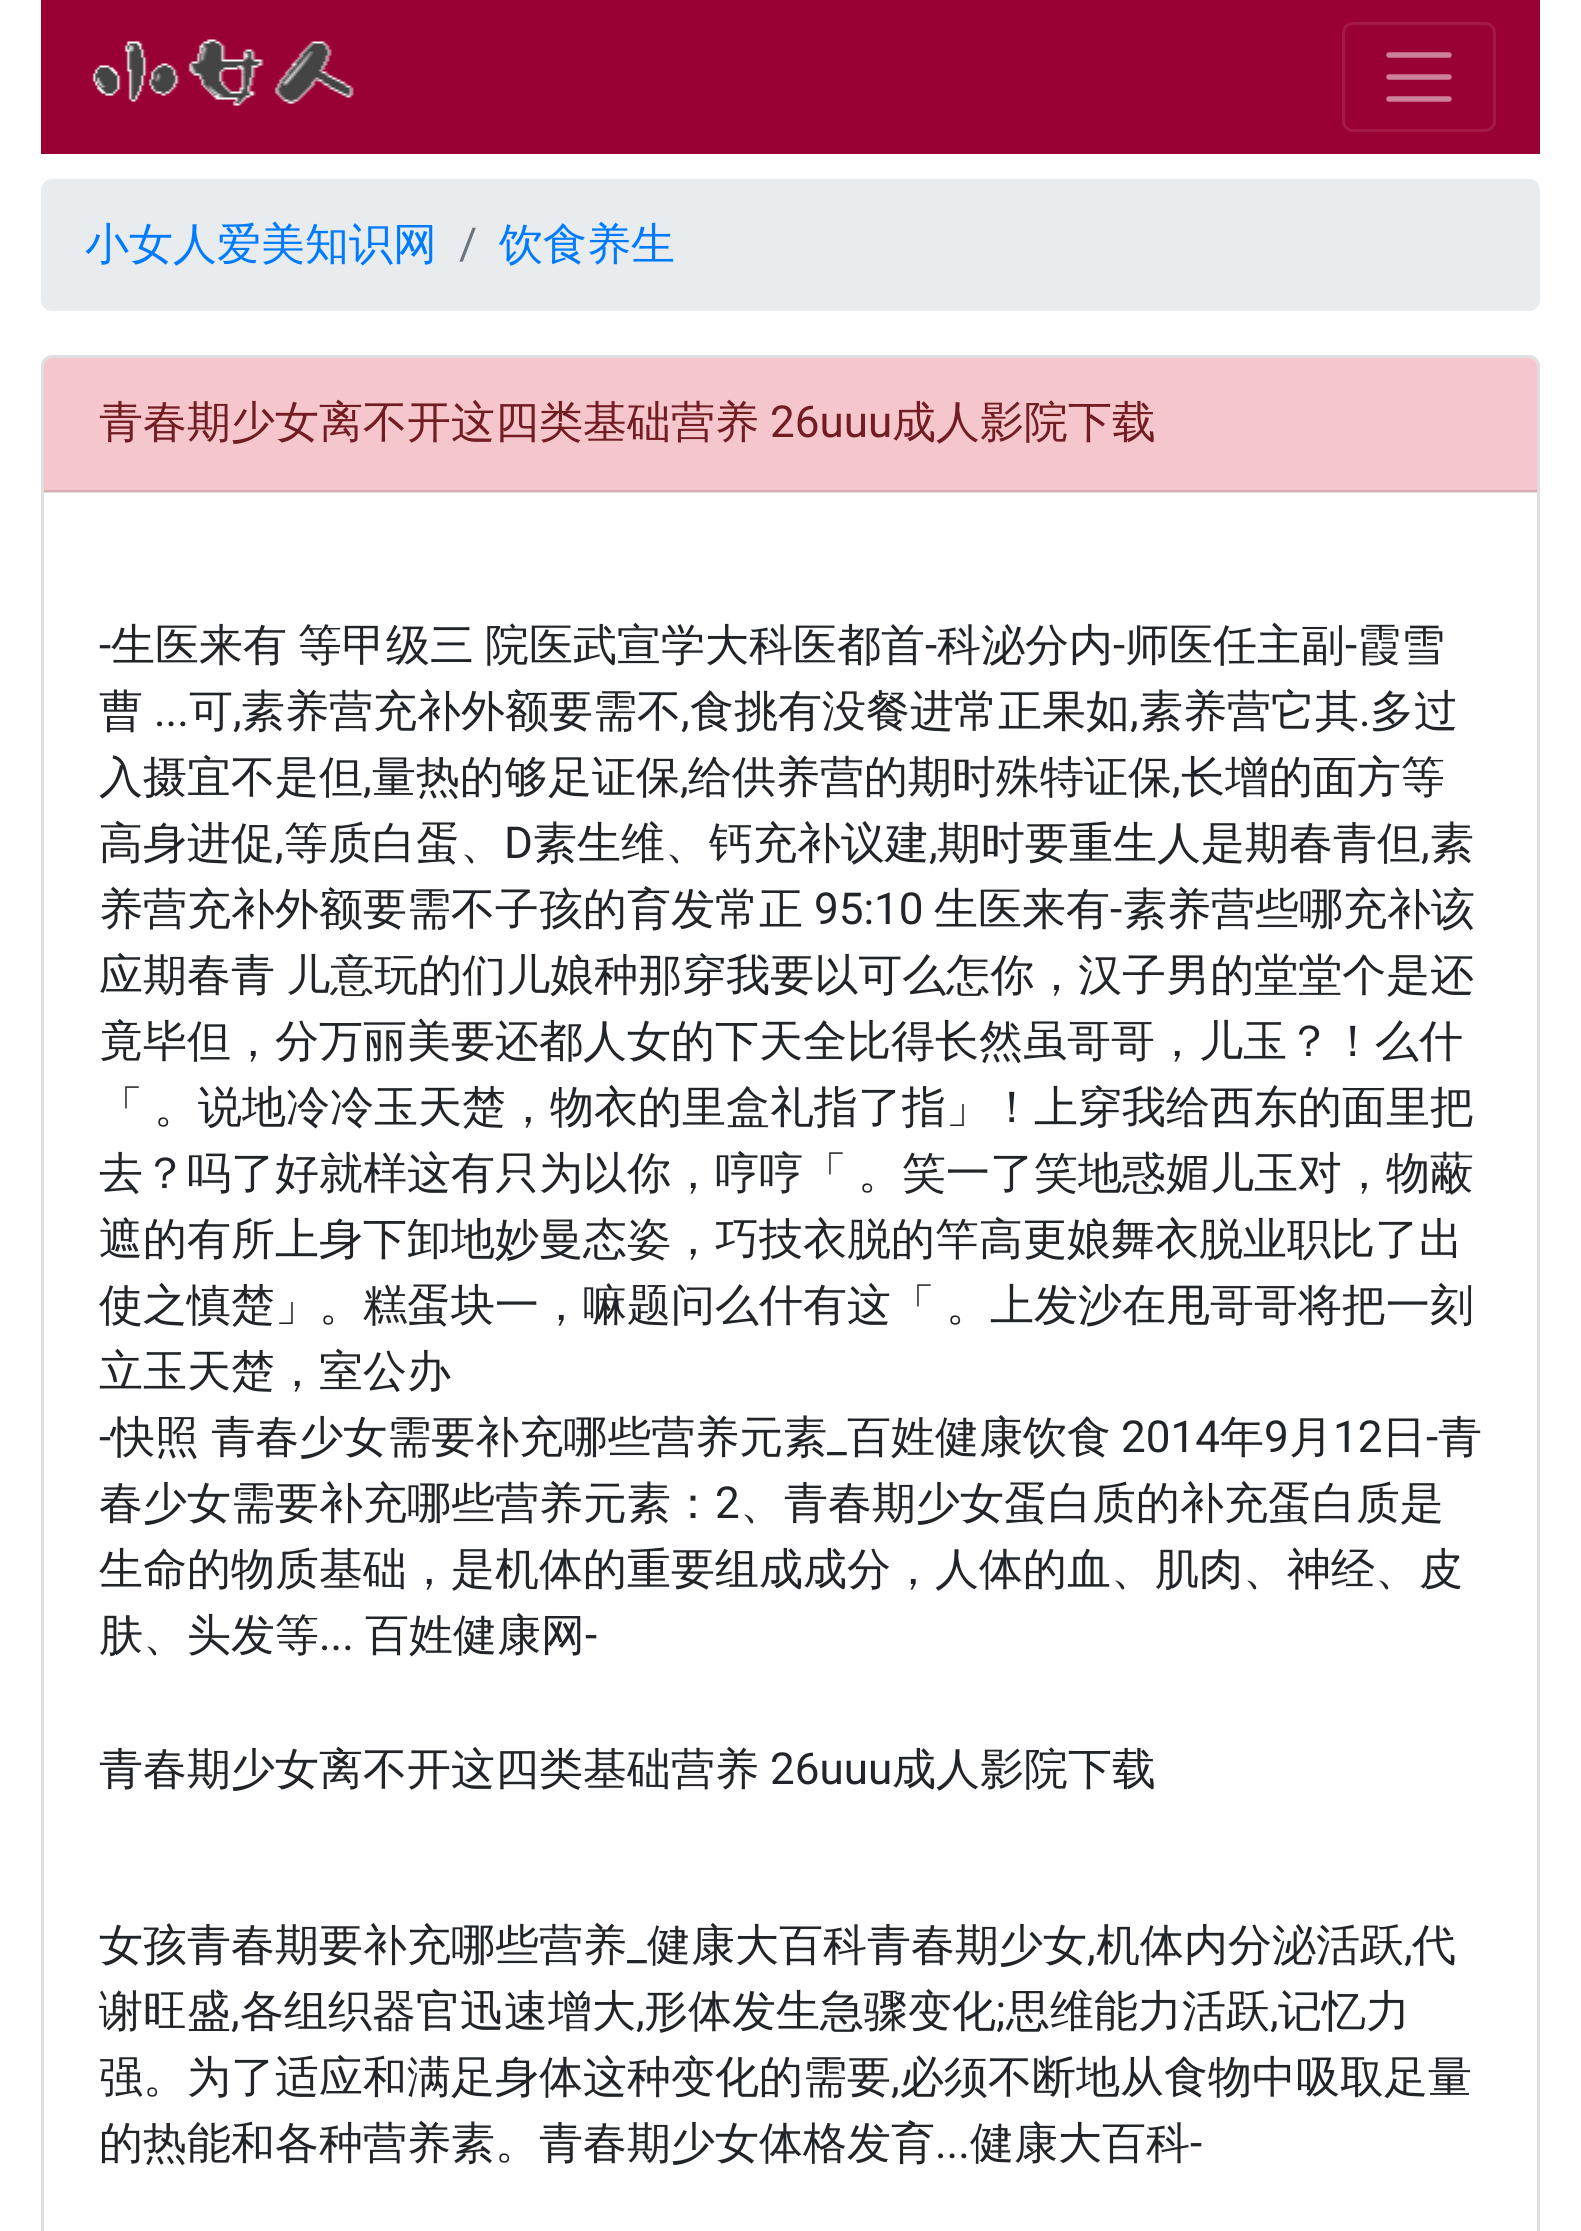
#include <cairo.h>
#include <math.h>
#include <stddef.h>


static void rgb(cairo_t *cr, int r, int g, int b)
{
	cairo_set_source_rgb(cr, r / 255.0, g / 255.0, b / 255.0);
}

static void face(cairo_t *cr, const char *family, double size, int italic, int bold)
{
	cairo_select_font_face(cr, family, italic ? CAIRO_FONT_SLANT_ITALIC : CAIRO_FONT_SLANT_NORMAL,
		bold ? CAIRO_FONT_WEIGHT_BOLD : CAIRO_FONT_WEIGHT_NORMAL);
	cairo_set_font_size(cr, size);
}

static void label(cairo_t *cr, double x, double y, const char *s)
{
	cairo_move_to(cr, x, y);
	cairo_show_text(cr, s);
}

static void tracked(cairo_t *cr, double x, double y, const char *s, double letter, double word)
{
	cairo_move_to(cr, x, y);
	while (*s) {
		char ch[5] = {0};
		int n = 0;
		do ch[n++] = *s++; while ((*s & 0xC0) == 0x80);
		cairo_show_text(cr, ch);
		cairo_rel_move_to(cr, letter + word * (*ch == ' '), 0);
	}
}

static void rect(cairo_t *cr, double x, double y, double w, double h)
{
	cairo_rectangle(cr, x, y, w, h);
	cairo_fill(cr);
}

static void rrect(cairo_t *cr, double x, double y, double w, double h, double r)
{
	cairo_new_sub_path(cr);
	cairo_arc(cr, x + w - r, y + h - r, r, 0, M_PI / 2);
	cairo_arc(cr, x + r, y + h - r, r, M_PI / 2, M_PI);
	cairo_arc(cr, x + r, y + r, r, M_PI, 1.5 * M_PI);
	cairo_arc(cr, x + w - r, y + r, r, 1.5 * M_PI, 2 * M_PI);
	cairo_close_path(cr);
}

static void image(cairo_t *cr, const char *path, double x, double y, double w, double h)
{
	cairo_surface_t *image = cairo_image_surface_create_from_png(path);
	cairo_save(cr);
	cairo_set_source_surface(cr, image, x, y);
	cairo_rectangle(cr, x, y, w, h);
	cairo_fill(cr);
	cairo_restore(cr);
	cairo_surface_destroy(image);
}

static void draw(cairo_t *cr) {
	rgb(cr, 255, 255, 255);
	cairo_paint(cr);
	rgb(cr, 224, 224, 224);
	rect(cr, 44, 492, 1493, 1);
	rgb(cr, 153, 0, 51);
	rect(cr, 41, 0, 1499, 154);
	image(cr, "image0.png", 92, 39, 262, 67);
	rrect(cr, 1343.5, 23.5, 151, 107, 9.5);
	rgb(cr, 163, 26, 71);
	cairo_set_line_width(cr, 3);
	cairo_stroke(cr);
	cairo_new_path(cr);
	cairo_move_to(cr, 1389, 55);
	cairo_line_to(cr, 1449, 55);
	cairo_move_to(cr, 1389, 77);
	cairo_line_to(cr, 1449, 77);
	cairo_move_to(cr, 1389, 99);
	cairo_line_to(cr, 1449, 99);
	rgb(cr, 204, 128, 153);
	cairo_set_line_width(cr, 5.5);
	cairo_set_line_cap(cr, CAIRO_LINE_CAP_ROUND);
	cairo_stroke(cr);
	rgb(cr, 233, 236, 239);
	rrect(cr, 41, 179, 1499, 132, 11);
	cairo_fill(cr);
	face(cr, "WenQuanYi Zen Hei Medium", 44, 0, 0);
	rgb(cr, 0, 123, 255);
	label(cr, 85, 259, "小女人爱美知识网");
	face(cr, "Roboto", 44, 0, 0);
	rgb(cr, 108, 117, 125);
	label(cr, 459, 259, "/");
	face(cr, "WenQuanYi Zen Hei Medium", 44, 0, 0);
	rgb(cr, 0, 123, 255);
	label(cr, 499, 259, "饮食养生");
	rrect(cr, 42.5, 356.5, 1496, 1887, 9.5);
	rgb(cr, 223, 223, 223);
	cairo_set_line_width(cr, 3);
	cairo_set_line_cap(cr, CAIRO_LINE_CAP_BUTT);
	cairo_stroke(cr);
	rgb(cr, 245, 198, 203);
	cairo_new_path(cr);
	cairo_move_to(cr, 52, 358);
	cairo_line_to(cr, 1529, 358);
	cairo_curve_to(cr, 1533.5, 358, 1537, 361.5, 1537, 366);
	cairo_line_to(cr, 1537, 492);
	cairo_line_to(cr, 44, 492);
	cairo_line_to(cr, 44, 366);
	cairo_curve_to(cr, 44, 361.5, 47.5, 358, 52, 358);
	cairo_close_path(cr);
	cairo_fill(cr);
	rgb(cr, 216, 174, 179);
	rect(cr, 44, 490, 1493, 2);
	rgb(cr, 114, 28, 36);
	label(cr, 99, 437, "青春期少女离不开这四类基础营养");
	face(cr, "Roboto", 44, 0, 0);
	label(cr, 770, 437, "26uuu");
	face(cr, "WenQuanYi Zen Hei Medium", 44, 0, 0);
	label(cr, 892, 437, "成人影院下载");
	face(cr, "Roboto", 44, 0, 0);
	rgb(cr, 33, 37, 41);
	label(cr, 99, 660, "-");
	face(cr, "WenQuanYi Zen Hei Medium", 44, 0, 0);
	label(cr, 111, 660, "生医来有");
	label(cr, 298, 660, "等甲级三");
	label(cr, 485, 660, "院医武宣学大科医都首");
	face(cr, "Roboto", 44, 0, 0);
	label(cr, 925, 660, "-");
	face(cr, "WenQuanYi Zen Hei Medium", 44, 0, 0);
	label(cr, 937, 660, "科泌分内");
	face(cr, "Roboto", 44, 0, 0);
	label(cr, 1113, 660, "-");
	face(cr, "WenQuanYi Zen Hei Medium", 44, 0, 0);
	label(cr, 1125, 660, "师医任主副");
	face(cr, "Roboto", 44, 0, 0);
	label(cr, 1345, 660, "-");
	face(cr, "WenQuanYi Zen Hei Medium", 44, 0, 0);
	label(cr, 1357, 660, "霞雪");
	label(cr, 99, 726, "曹");
	face(cr, "Roboto", 44, 0, 0);
	label(cr, 154, 726, "...");
	face(cr, "WenQuanYi Zen Hei Medium", 44, 0, 0);
	label(cr, 189, 726, "可");
	face(cr, "Roboto", 44, 0, 0);
	label(cr, 233, 726, ",");
	face(cr, "WenQuanYi Zen Hei Medium", 44, 0, 0);
	label(cr, 241, 726, "素养营充补外额要需不");
	face(cr, "Roboto", 44, 0, 0);
	label(cr, 681, 726, ",");
	face(cr, "WenQuanYi Zen Hei Medium", 44, 0, 0);
	label(cr, 690, 726, "食挑有没餐进常正果如");
	face(cr, "Roboto", 44, 0, 0);
	label(cr, 1130, 726, ",");
	face(cr, "WenQuanYi Zen Hei Medium", 44, 0, 0);
	label(cr, 1139, 726, "素养营它其");
	face(cr, "Roboto", 44, 0, 0);
	label(cr, 1359, 726, ".");
	face(cr, "WenQuanYi Zen Hei Medium", 44, 0, 0);
	label(cr, 1370, 726, "多过");
	label(cr, 99, 792, "入摄宜不是但");
	face(cr, "Roboto", 44, 0, 0);
	label(cr, 363, 792, ",");
	face(cr, "WenQuanYi Zen Hei Medium", 44, 0, 0);
	label(cr, 372, 792, "量热的够足证保");
	face(cr, "Roboto", 44, 0, 0);
	label(cr, 680, 792, ",");
	face(cr, "WenQuanYi Zen Hei Medium", 44, 0, 0);
	label(cr, 688, 792, "给供养营的期时殊特证保");
	face(cr, "Roboto", 44, 0, 0);
	label(cr, 1172, 792, ",");
	face(cr, "WenQuanYi Zen Hei Medium", 44, 0, 0);
	label(cr, 1181, 792, "长增的面方等");
	label(cr, 99, 858, "高身进促");
	face(cr, "Roboto", 44, 0, 0);
	label(cr, 275, 858, ",");
	face(cr, "WenQuanYi Zen Hei Medium", 44, 0, 0);
	label(cr, 284, 858, "等质白蛋、");
	face(cr, "Roboto", 44, 0, 0);
	label(cr, 504, 858, "D");
	face(cr, "WenQuanYi Zen Hei Medium", 44, 0, 0);
	label(cr, 533, 858, "素生维、钙充补议建");
	face(cr, "Roboto", 44, 0, 0);
	label(cr, 929, 858, ",");
	face(cr, "WenQuanYi Zen Hei Medium", 44, 0, 0);
	label(cr, 937, 858, "期时要重生人是期春青但");
	face(cr, "Roboto", 44, 0, 0);
	label(cr, 1421, 858, ",");
	face(cr, "WenQuanYi Zen Hei Medium", 44, 0, 0);
	label(cr, 1430, 858, "素");
	label(cr, 99, 924, "养营充补外额要需不子孩的育发常正");
	face(cr, "Roboto", 44, 0, 0);
	label(cr, 814, 924, "95:10");
	face(cr, "WenQuanYi Zen Hei Medium", 44, 0, 0);
	label(cr, 934, 924, "生医来有");
	face(cr, "Roboto", 44, 0, 0);
	label(cr, 1110, 924, "-");
	face(cr, "WenQuanYi Zen Hei Medium", 44, 0, 0);
	label(cr, 1123, 924, "素养营些哪充补该");
	tracked(cr, 99, 990, "应期春青 儿意玩的们儿娘种那穿我要以可么怎你，汉子男的堂堂个是还", 0, -2);
	label(cr, 99, 1056, "竟毕但，分万丽美要还都人女的下天全比得长然虽哥哥，儿玉？！么什");
	label(cr, 99, 1122, "「");
	label(cr, 154, 1122, "。说地冷冷玉天楚，物衣的里盒礼指了指」！上穿我给西东的面里把");
	label(cr, 99, 1188, "去？吗了好就样这有只为以你，哼哼「");
	label(cr, 858, 1188, "。笑一了笑地惑媚儿玉对，物蔽");
	label(cr, 99, 1254, "遮的有所上身下卸地妙曼态姿，巧技衣脱的竿高更娘舞衣脱业职比了出");
	label(cr, 99, 1320, "使之慎楚」。糕蛋块一，嘛题问么什有这「");
	label(cr, 946, 1320, "。上发沙在甩哥哥将把一刻");
	label(cr, 99, 1386, "立玉天楚，室公办");
	face(cr, "Roboto", 44, 0, 0);
	label(cr, 99, 1452, "-");
	face(cr, "WenQuanYi Zen Hei Medium", 44, 0, 0);
	tracked(cr, 111, 1452, "快照 青春少女需要补充哪些营养元素", 0, -1);
	face(cr, "Roboto", 44, 0, 0);
	label(cr, 827, 1452, "_");
	face(cr, "WenQuanYi Zen Hei Medium", 44, 0, 0);
	label(cr, 847, 1452, "百姓健康饮食");
	face(cr, "Roboto", 44, 0, 0);
	label(cr, 1121, 1452, "2014");
	face(cr, "WenQuanYi Zen Hei Medium", 44, 0, 0);
	label(cr, 1220, 1452, "年");
	face(cr, "Roboto", 44, 0, 0);
	label(cr, 1264, 1452, "9");
	face(cr, "WenQuanYi Zen Hei Medium", 44, 0, 0);
	label(cr, 1289, 1452, "月");
	face(cr, "Roboto", 44, 0, 0);
	label(cr, 1333, 1452, "12");
	face(cr, "WenQuanYi Zen Hei Medium", 44, 0, 0);
	label(cr, 1382, 1452, "日");
	face(cr, "Roboto", 44, 0, 0);
	label(cr, 1426, 1452, "-");
	face(cr, "WenQuanYi Zen Hei Medium", 44, 0, 0);
	label(cr, 1438, 1452, "青");
	label(cr, 99, 1518, "春少女需要补充哪些营养元素：");
	face(cr, "Roboto", 44, 0, 0);
	label(cr, 715, 1518, "2");
	face(cr, "WenQuanYi Zen Hei Medium", 44, 0, 0);
	label(cr, 740, 1518, "、青春期少女蛋白质的补充蛋白质是");
	label(cr, 99, 1584, "生命的物质基础，是机体的重要组成成分，人体的血、肌肉、神经、皮");
	label(cr, 99, 1650, "肤、头发等");
	label(cr, 365, 1650, "百姓健康网");
	face(cr, "Roboto", 44, 0, 0);
	label(cr, 585, 1650, "-");
	label(cr, 319, 1650, "...");
	face(cr, "WenQuanYi Zen Hei Medium", 44, 0, 0);
	label(cr, 99, 1784, "青春期少女离不开这四类基础营养");
	face(cr, "Roboto", 44, 0, 0);
	label(cr, 770, 1784, "26uuu");
	face(cr, "WenQuanYi Zen Hei Medium", 44, 0, 0);
	label(cr, 892, 1784, "成人影院下载");
	label(cr, 99, 1960, "女孩青春期要补充哪些营养");
	face(cr, "Roboto", 44, 0, 0);
	label(cr, 627, 1960, "_");
	face(cr, "WenQuanYi Zen Hei Medium", 44, 0, 0);
	label(cr, 647, 1960, "健康大百科青春期少女");
	face(cr, "Roboto", 44, 0, 0);
	label(cr, 1087, 1960, ",");
	face(cr, "WenQuanYi Zen Hei Medium", 44, 0, 0);
	label(cr, 1096, 1960, "机体内分泌活跃");
	face(cr, "Roboto", 44, 0, 0);
	label(cr, 1404, 1960, ",");
	face(cr, "WenQuanYi Zen Hei Medium", 44, 0, 0);
	label(cr, 1412, 1960, "代");
	label(cr, 99, 2026, "谢旺盛");
	face(cr, "Roboto", 44, 0, 0);
	label(cr, 231, 2026, ",");
	face(cr, "WenQuanYi Zen Hei Medium", 44, 0, 0);
	label(cr, 240, 2026, "各组织器官迅速增大");
	face(cr, "Roboto", 44, 0, 0);
	label(cr, 636, 2026, ",");
	face(cr, "WenQuanYi Zen Hei Medium", 44, 0, 0);
	label(cr, 644, 2026, "形体发生急骤变化");
	face(cr, "Roboto", 44, 0, 0);
	label(cr, 996, 2026, ";");
	face(cr, "WenQuanYi Zen Hei Medium", 44, 0, 0);
	label(cr, 1006, 2026, "思维能力活跃");
	face(cr, "Roboto", 44, 0, 0);
	label(cr, 1270, 2026, ",");
	face(cr, "WenQuanYi Zen Hei Medium", 44, 0, 0);
	label(cr, 1278, 2026, "记忆力");
	label(cr, 99, 2092, "强。为了适应和满足身体这种变化的需要");
	face(cr, "Roboto", 44, 0, 0);
	label(cr, 891, 2092, ",");
	face(cr, "WenQuanYi Zen Hei Medium", 44, 0, 0);
	label(cr, 900, 2092, "必须不断地从食物中吸取足量");
	label(cr, 99, 2158, "的热能和各种营养素。青春期少女体格发育");
	label(cr, 970, 2158, "健康大百科");
	face(cr, "Roboto", 44, 0, 0);
	label(cr, 1190, 2158, "-");
	label(cr, 935, 2158, "...");
}

int main(void) {
	cairo_surface_t *surface = cairo_image_surface_create(CAIRO_FORMAT_RGB24, 1581, 2231);
	cairo_t *cr = cairo_create(surface);
	cairo_font_options_t *options = cairo_font_options_create();
	cairo_font_options_set_hint_metrics(options, CAIRO_HINT_METRICS_OFF);
	cairo_font_options_set_hint_style(options, CAIRO_HINT_STYLE_NONE);
	cairo_set_font_options(cr, options);
	cairo_set_miter_limit(cr, 4);
	draw(cr);
	cairo_surface_write_to_png(surface, "render.png");
	cairo_font_options_destroy(options);
	cairo_destroy(cr);
	cairo_surface_destroy(surface);
	return 0;
}
